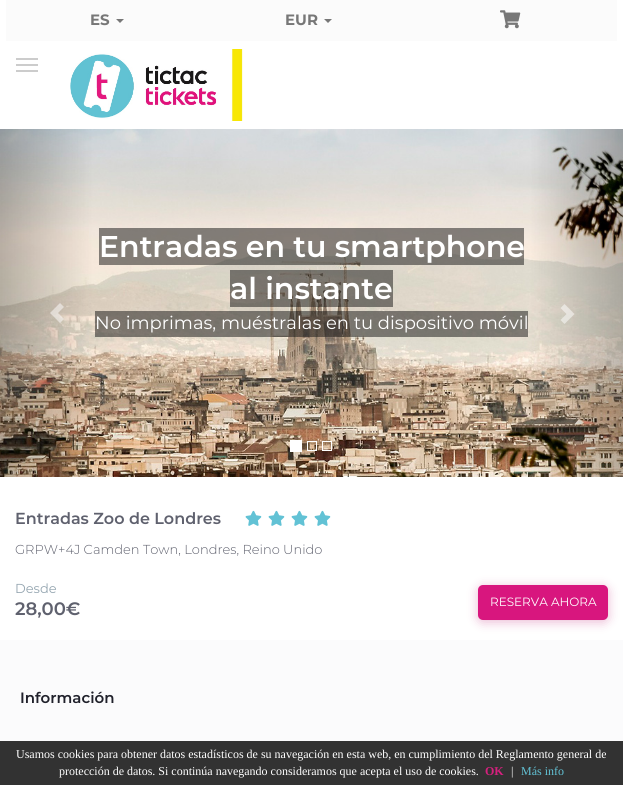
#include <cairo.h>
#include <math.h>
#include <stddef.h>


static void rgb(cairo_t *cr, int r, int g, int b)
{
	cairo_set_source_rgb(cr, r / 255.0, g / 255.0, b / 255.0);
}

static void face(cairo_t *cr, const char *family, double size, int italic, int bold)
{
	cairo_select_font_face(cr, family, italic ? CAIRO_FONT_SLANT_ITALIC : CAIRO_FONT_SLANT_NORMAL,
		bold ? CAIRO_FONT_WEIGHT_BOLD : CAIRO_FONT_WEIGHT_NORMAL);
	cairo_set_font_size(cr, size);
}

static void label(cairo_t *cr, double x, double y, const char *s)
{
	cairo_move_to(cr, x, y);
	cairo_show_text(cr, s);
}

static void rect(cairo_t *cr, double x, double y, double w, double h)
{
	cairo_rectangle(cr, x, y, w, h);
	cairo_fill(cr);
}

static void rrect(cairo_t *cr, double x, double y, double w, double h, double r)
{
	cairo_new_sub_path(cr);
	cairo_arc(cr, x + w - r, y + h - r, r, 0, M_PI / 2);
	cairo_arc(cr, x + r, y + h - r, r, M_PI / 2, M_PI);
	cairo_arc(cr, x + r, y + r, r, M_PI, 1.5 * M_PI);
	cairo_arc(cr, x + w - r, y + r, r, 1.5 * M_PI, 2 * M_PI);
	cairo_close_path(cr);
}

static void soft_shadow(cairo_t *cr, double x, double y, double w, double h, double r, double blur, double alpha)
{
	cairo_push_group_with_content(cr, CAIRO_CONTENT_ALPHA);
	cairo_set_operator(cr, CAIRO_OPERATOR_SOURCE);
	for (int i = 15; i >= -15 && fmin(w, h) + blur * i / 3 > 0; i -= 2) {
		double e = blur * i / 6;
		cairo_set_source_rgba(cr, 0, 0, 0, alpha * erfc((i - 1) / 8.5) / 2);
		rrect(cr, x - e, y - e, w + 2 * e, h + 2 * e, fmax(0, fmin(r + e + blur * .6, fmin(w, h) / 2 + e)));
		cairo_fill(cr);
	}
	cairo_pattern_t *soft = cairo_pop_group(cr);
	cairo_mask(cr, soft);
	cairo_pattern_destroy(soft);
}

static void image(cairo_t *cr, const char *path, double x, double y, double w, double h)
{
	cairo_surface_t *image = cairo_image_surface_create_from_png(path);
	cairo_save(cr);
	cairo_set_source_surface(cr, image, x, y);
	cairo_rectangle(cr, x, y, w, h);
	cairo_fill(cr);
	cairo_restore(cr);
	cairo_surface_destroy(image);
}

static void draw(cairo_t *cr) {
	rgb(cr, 255, 255, 255);
	cairo_paint(cr);
	rgb(cr, 251, 251, 251);
	rect(cr, 6, 0, 611, 41);
	face(cr, "Montserrat", 15, 0, 1);
	rgb(cr, 119, 119, 119);
	label(cr, 90, 25, "ES");
	cairo_new_path(cr);
	cairo_move_to(cr, 116, 19);
	cairo_line_to(cr, 124, 19);
	cairo_line_to(cr, 120, 23);
	cairo_close_path(cr);
	cairo_fill(cr);
	label(cr, 285, 25, "EUR");
	cairo_new_path(cr);
	cairo_move_to(cr, 324, 19);
	cairo_line_to(cr, 332, 19);
	cairo_line_to(cr, 328, 23);
	cairo_close_path(cr);
	cairo_fill(cr);
	image(cr, "image0.png", 500, 10, 21, 19);
	rgb(cr, 204, 204, 204);
	rect(cr, 16, 58, 22, 2);
	rect(cr, 16, 64, 22, 2);
	rect(cr, 16, 70, 22, 2);
	image(cr, "image1.png", 70, 49, 173, 72);
	image(cr, "image2.png", 0, 129, 623, 348);
	cairo_set_source_rgba(cr, 1, 1, 1, 0.5);
	cairo_new_path(cr);
	cairo_move_to(cr, 50, 313);
	cairo_line_to(cr, 60, 323);
	cairo_line_to(cr, 64, 319);
	cairo_line_to(cr, 58, 313);
	cairo_line_to(cr, 64, 307);
	cairo_line_to(cr, 60, 303);
	cairo_close_path(cr);
	cairo_fill(cr);
	cairo_set_source_rgba(cr, 0.078, 0.078, 0.078, 0.5);
	rect(cr, 99, 228, 425, 37);
	face(cr, "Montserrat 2 SemiBold", 30, 0, 0);
	rgb(cr, 255, 255, 255);
	label(cr, 99, 257, "Entradas en tu smartphone");
	cairo_set_source_rgba(cr, 0.078, 0.078, 0.078, 0.5);
	rect(cr, 230, 270, 163, 37);
	rgb(cr, 255, 255, 255);
	label(cr, 230, 299, "al instante");
	cairo_set_source_rgba(cr, 0.078, 0.078, 0.078, 0.5);
	rect(cr, 95, 311, 433, 26);
	face(cr, "Montserrat", 18, 0, 0);
	rgb(cr, 255, 255, 255);
	label(cr, 95, 329, "No imprimas, muéstralas en tu dispositivo móvil");
	cairo_set_source_rgba(cr, 1, 1, 1, 0.5);
	cairo_new_path(cr);
	cairo_move_to(cr, 560.5, 320);
	cairo_line_to(cr, 566.5, 314);
	cairo_line_to(cr, 560.5, 308);
	cairo_line_to(cr, 564.5, 304);
	cairo_line_to(cr, 574.5, 314);
	cairo_line_to(cr, 564.5, 324);
	cairo_close_path(cr);
	cairo_fill(cr);
	rgb(cr, 255, 255, 255);
	rect(cr, 290, 440, 12, 12);
	cairo_rectangle(cr, 307.5, 441.5, 9, 9);
	cairo_set_line_width(cr, 1);
	cairo_stroke(cr);
	cairo_rectangle(cr, 322.5, 441.5, 9, 9);
	cairo_stroke(cr);
	face(cr, "Montserrat SemiBold", 16, 0, 0);
	rgb(cr, 95, 97, 110);
	label(cr, 15, 524, "Entradas Zoo de Londres");
	image(cr, "image3.png", 245, 510, 17, 16);
	image(cr, "image3.png", 268, 510, 17, 16);
	image(cr, "image3.png", 291, 510, 17, 16);
	image(cr, "image3.png", 314, 510, 17, 16);
	face(cr, "Montserrat Light", 13, 0, 0);
	label(cr, 15, 554, "GRPW+4J Camden Town, Londres, Reino Unido");
	face(cr, "Montserrat", 13, 0, 0);
	rgb(cr, 148, 165, 176);
	label(cr, 15, 593, "Desde");
	face(cr, "Montserrat 2 SemiBold", 18, 0, 0);
	rgb(cr, 95, 97, 110);
	label(cr, 15, 615, "28,00€");
	rgb(cr, 182, 3, 99);
	soft_shadow(cr, 478, 587, 130, 35, 5, 5.5, 0.28);
	rgb(cr, 216, 22, 126);
	rrect(cr, 478, 585, 130, 35, 5);
	cairo_fill(cr);
	face(cr, "Montserrat", 12, 0, 0);
	rgb(cr, 255, 255, 255);
	label(cr, 490, 606, "RESERVA AHORA");
	cairo_set_source_rgba(cr, 0.847, 0.851, 0.878, 0.1);
	rect(cr, 0, 640, 623, 145);
	face(cr, "Montserrat SemiBold", 15, 0, 0);
	rgb(cr, 32, 33, 43);
	label(cr, 20, 703, "Información");
	cairo_set_source_rgba(cr, 0, 0, 0, 0.8);
	rect(cr, 0, 741, 623, 44);
	face(cr, "Liberation Serif", 12, 0, 0);
	rgb(cr, 255, 255, 255);
	label(cr, 16, 758, "Usamos cookies para obtener datos estadísticos de su navegación en esta web, en cumplimiento del Reglamento general de");
	label(cr, 59, 775, "protección de datos. Si continúa navegando consideramos que acepta el uso de cookies.");
	face(cr, "Liberation Serif", 12, 0, 1);
	rgb(cr, 214, 32, 126);
	label(cr, 485, 775, "OK");
	face(cr, "Liberation Serif", 12, 0, 0);
	rgb(cr, 255, 255, 255);
	label(cr, 511, 775, "|");
	rgb(cr, 98, 194, 213);
	label(cr, 521, 775, "Más info");
}

int main(void) {
	cairo_surface_t *surface = cairo_image_surface_create(CAIRO_FORMAT_RGB24, 623, 785);
	cairo_t *cr = cairo_create(surface);
	cairo_font_options_t *options = cairo_font_options_create();
	cairo_font_options_set_hint_metrics(options, CAIRO_HINT_METRICS_OFF);
	cairo_font_options_set_hint_style(options, CAIRO_HINT_STYLE_NONE);
	cairo_set_font_options(cr, options);
	cairo_set_miter_limit(cr, 4);
	draw(cr);
	cairo_surface_write_to_png(surface, "render.png");
	cairo_font_options_destroy(options);
	cairo_destroy(cr);
	cairo_surface_destroy(surface);
	return 0;
}
